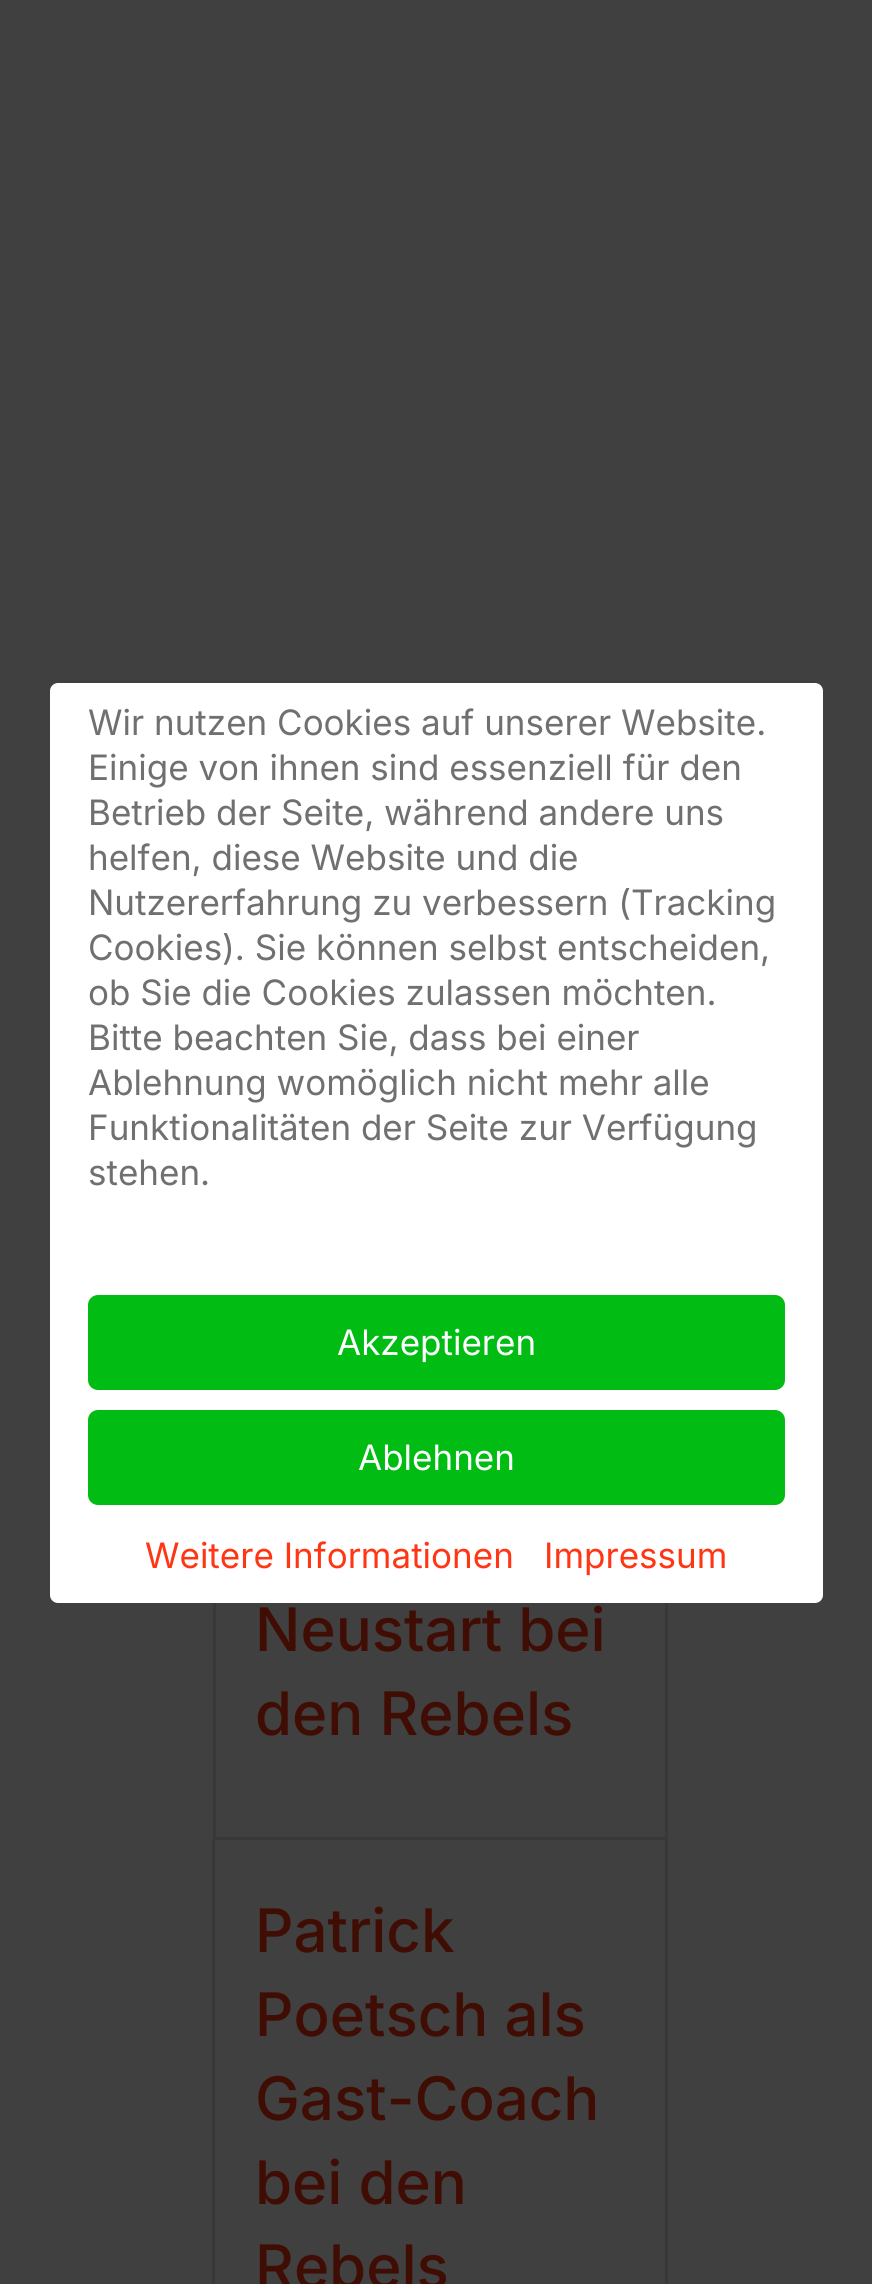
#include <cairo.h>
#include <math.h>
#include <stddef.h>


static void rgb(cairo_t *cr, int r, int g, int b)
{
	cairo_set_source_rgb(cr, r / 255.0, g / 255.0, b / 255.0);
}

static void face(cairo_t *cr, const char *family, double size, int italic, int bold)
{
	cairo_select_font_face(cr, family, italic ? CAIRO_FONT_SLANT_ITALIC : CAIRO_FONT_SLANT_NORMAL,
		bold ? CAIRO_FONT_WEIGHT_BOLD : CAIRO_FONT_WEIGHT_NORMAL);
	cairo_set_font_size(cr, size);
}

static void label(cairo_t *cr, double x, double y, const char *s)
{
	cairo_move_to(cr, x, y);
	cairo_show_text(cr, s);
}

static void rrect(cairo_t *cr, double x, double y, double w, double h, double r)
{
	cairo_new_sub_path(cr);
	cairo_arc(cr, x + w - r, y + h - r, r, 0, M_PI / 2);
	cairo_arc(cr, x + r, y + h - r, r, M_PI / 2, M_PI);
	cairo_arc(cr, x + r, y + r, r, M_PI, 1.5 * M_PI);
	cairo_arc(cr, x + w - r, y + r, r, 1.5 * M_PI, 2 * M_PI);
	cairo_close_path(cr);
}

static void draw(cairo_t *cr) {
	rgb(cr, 64, 64, 64);
	cairo_paint(cr);
	cairo_rectangle(cr, 214.5, 1539.5, 452, 299);
	rgb(cr, 56, 56, 56);
	cairo_set_line_width(cr, 3);
	cairo_stroke(cr);
	rgb(cr, 255, 255, 255);
	rrect(cr, 50, 683, 773, 920, 8);
	cairo_fill(cr);
	face(cr, "Inter", 35, 0, 0);
	rgb(cr, 112, 112, 112);
	label(cr, 88, 735, "Wir nutzen Cookies auf unserer Website.");
	label(cr, 88, 780, "Einige von ihnen sind essenziell für den");
	label(cr, 88, 825, "Betrieb der Seite, während andere uns");
	label(cr, 88, 870, "helfen, diese Website und die");
	label(cr, 88, 915, "Nutzererfahrung zu verbessern (Tracking");
	label(cr, 88, 960, "Cookies). Sie können selbst entscheiden,");
	label(cr, 88, 1005, "ob Sie die Cookies zulassen möchten.");
	label(cr, 88, 1050, "Bitte beachten Sie, dass bei einer");
	label(cr, 88, 1095, "Ablehnung womöglich nicht mehr alle");
	label(cr, 88, 1140, "Funktionalitäten der Seite zur Verfügung");
	label(cr, 88, 1185, "stehen.");
	rgb(cr, 0, 188, 19);
	rrect(cr, 88, 1295, 697, 95, 10);
	cairo_fill(cr);
	rgb(cr, 255, 255, 255);
	label(cr, 337, 1355, "Akzeptieren");
	rgb(cr, 0, 188, 19);
	rrect(cr, 88, 1410, 697, 95, 10);
	cairo_fill(cr);
	rgb(cr, 255, 255, 255);
	label(cr, 358, 1470, "Ablehnen");
	rgb(cr, 255, 53, 20);
	label(cr, 145, 1568, "Weitere Informationen");
	label(cr, 544, 1568, "Impressum");
	face(cr, "Inter Medium", 60, 0, 0);
	rgb(cr, 64, 13, 5);
	label(cr, 255, 1651, "Neustart bei");
	label(cr, 255, 1735, "den Rebels");
	rgb(cr, 56, 56, 56);
	cairo_new_path(cr);
	cairo_move_to(cr, 668, 1840);
	cairo_line_to(cr, 668, 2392);
	cairo_line_to(cr, 665, 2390);
	cairo_line_to(cr, 665, 1840);
	cairo_close_path(cr);
	cairo_fill(cr);
	cairo_new_path(cr);
	cairo_move_to(cr, 212, 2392);
	cairo_line_to(cr, 212, 1840);
	cairo_line_to(cr, 215, 1840);
	cairo_line_to(cr, 215, 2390);
	cairo_close_path(cr);
	cairo_fill(cr);
	rgb(cr, 64, 13, 5);
	label(cr, 255, 1952, "Patrick");
	label(cr, 255, 2036, "Poetsch als");
	label(cr, 255, 2120, "Gast-Coach");
	label(cr, 255, 2204, "bei den");
	label(cr, 255, 2288, "Rebels");
}

int main(void) {
	cairo_surface_t *surface = cairo_image_surface_create(CAIRO_FORMAT_RGB24, 872, 2284);
	cairo_t *cr = cairo_create(surface);
	cairo_font_options_t *options = cairo_font_options_create();
	cairo_font_options_set_hint_metrics(options, CAIRO_HINT_METRICS_OFF);
	cairo_font_options_set_hint_style(options, CAIRO_HINT_STYLE_NONE);
	cairo_set_font_options(cr, options);
	cairo_set_miter_limit(cr, 4);
	draw(cr);
	cairo_surface_write_to_png(surface, "render.png");
	cairo_font_options_destroy(options);
	cairo_destroy(cr);
	cairo_surface_destroy(surface);
	return 0;
}
